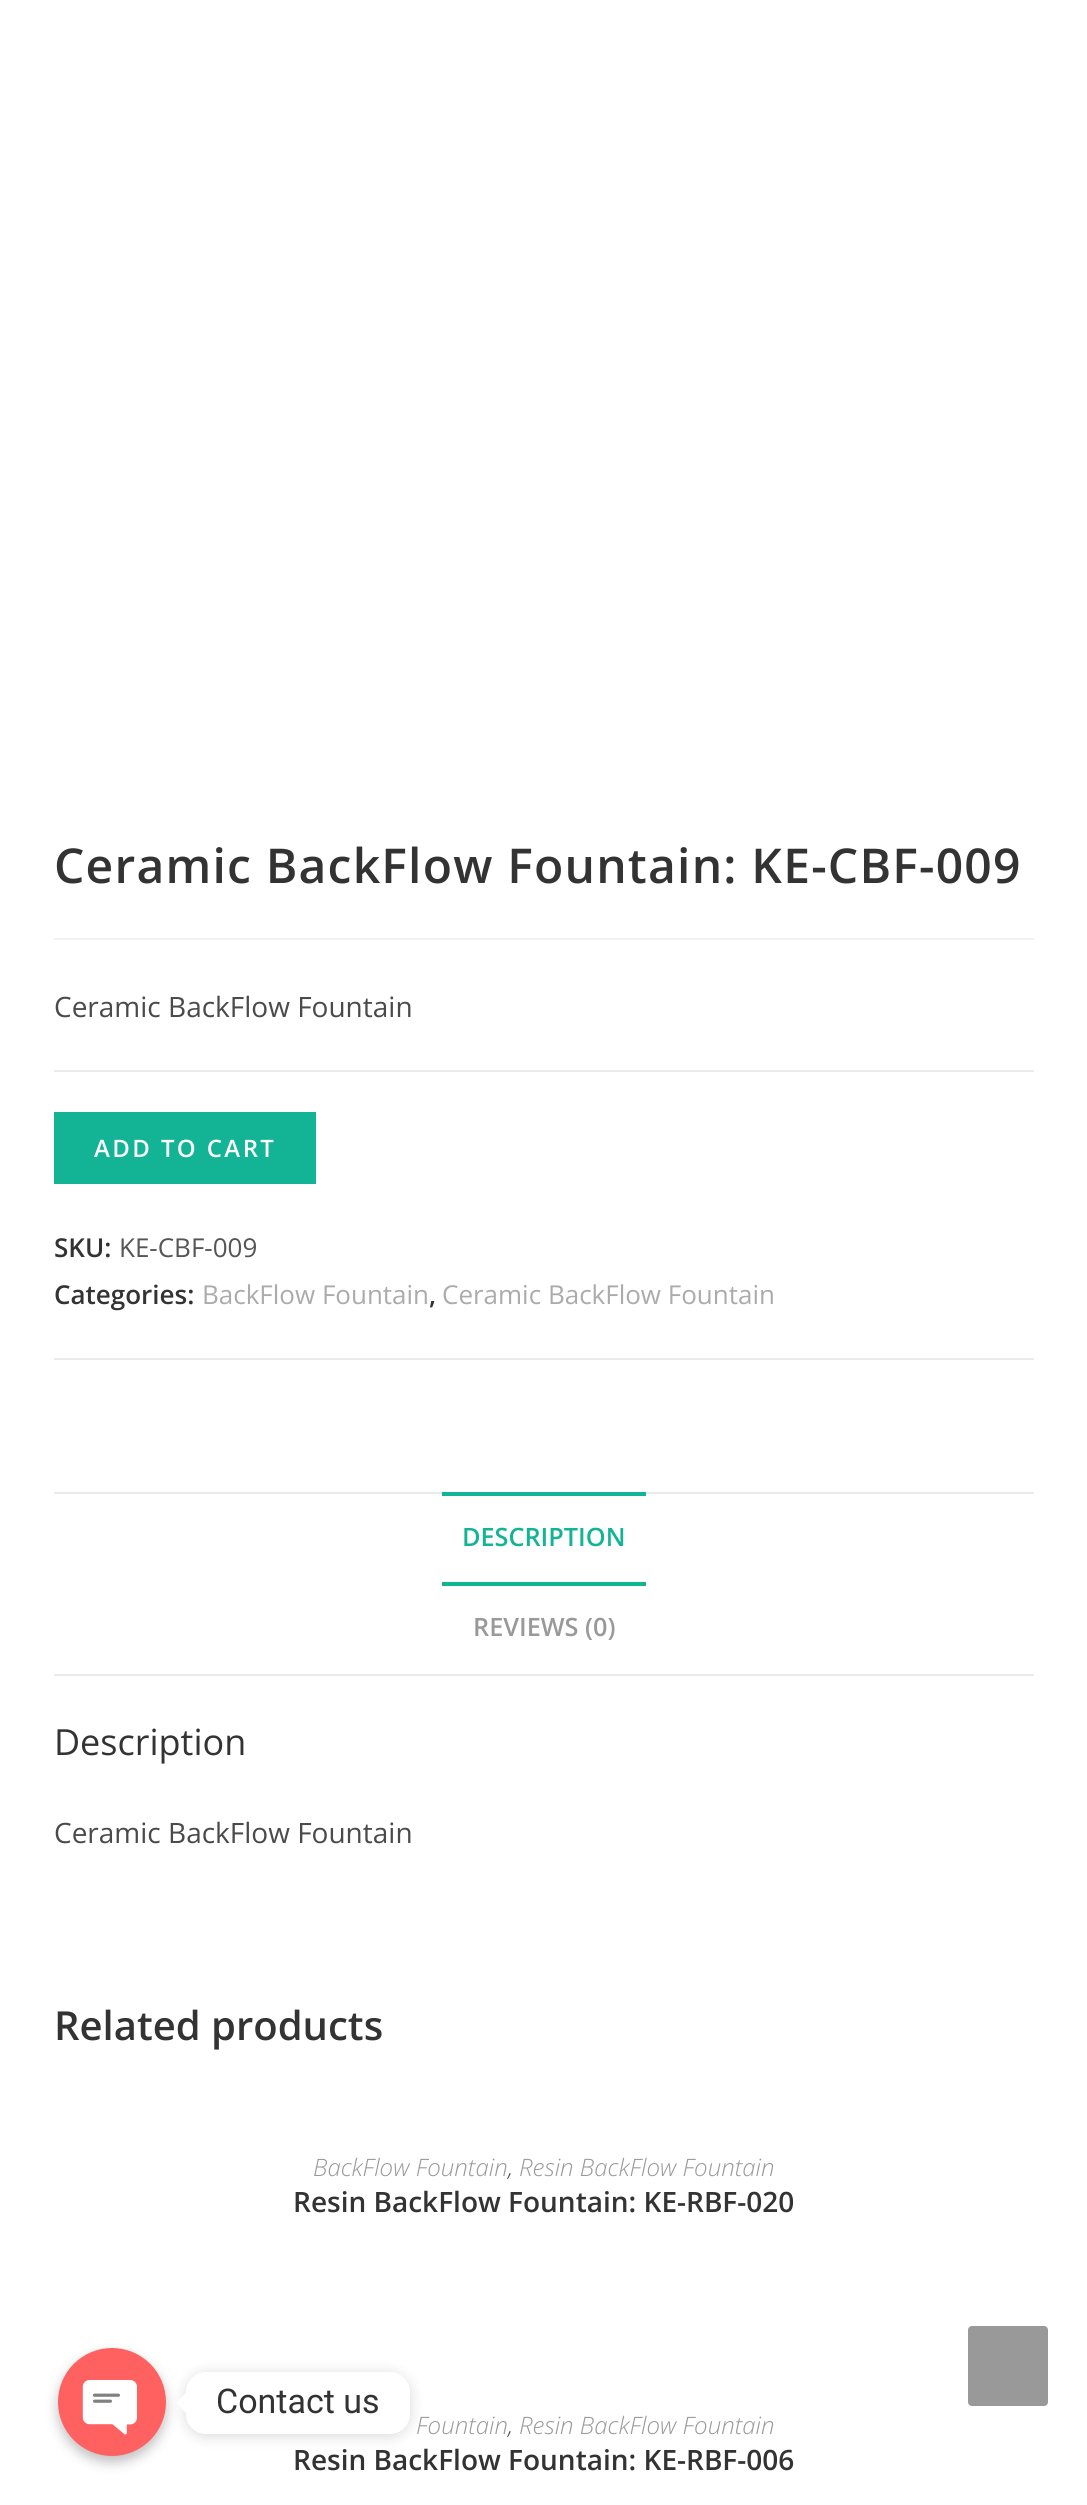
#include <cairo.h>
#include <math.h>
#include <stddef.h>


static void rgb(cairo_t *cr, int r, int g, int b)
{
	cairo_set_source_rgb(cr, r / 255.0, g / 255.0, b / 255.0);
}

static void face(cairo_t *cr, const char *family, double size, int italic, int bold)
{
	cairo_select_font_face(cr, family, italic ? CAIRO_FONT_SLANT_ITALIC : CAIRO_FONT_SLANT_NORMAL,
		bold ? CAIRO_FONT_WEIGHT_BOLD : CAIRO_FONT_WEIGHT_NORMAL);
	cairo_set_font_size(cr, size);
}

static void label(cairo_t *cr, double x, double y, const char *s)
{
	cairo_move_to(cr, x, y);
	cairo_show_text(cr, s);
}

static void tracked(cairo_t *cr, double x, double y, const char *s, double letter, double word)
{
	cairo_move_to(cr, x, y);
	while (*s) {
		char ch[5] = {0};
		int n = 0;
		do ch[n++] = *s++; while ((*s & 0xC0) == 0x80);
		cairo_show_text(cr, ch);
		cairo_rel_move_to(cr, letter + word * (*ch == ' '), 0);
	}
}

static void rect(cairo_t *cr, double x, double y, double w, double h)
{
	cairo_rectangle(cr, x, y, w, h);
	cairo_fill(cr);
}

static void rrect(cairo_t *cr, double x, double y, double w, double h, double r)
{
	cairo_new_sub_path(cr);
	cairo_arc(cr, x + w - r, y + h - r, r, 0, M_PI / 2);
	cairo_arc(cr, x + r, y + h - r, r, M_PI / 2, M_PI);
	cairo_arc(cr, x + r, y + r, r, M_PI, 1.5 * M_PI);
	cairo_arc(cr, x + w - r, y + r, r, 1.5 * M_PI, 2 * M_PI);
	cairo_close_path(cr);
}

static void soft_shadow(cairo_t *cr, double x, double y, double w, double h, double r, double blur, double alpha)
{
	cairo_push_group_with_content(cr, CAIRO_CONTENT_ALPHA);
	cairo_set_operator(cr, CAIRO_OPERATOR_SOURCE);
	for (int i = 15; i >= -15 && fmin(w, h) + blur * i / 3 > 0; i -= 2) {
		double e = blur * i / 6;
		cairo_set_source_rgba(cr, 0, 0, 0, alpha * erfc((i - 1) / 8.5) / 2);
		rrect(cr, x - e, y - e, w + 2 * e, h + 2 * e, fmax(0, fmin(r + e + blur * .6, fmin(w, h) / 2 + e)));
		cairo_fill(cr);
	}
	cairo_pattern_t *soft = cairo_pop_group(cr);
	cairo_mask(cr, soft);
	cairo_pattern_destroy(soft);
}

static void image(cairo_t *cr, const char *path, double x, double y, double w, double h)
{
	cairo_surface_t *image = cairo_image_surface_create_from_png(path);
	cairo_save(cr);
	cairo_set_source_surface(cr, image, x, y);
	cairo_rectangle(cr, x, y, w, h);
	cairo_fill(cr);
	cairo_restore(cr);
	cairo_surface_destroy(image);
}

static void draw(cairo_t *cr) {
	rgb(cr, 255, 255, 255);
	cairo_paint(cr);
	rgb(cr, 241, 241, 241);
	rect(cr, 54, 938, 980, 2);
	face(cr, "Open Sans SemiBold", 48, 0, 0);
	rgb(cr, 51, 51, 51);
	tracked(cr, 54, 883, "Ceramic BackFlow Fountain: KE-CBF-009", 1.2, 0);
	face(cr, "Open Sans", 28, 0, 0);
	rgb(cr, 74, 74, 74);
	label(cr, 54, 1017, "Ceramic BackFlow Fountain");
	rgb(cr, 234, 234, 234);
	rect(cr, 54, 1070, 980, 2);
	rect(cr, 54, 1358, 980, 2);
	rgb(cr, 19, 179, 150);
	rect(cr, 54, 1112, 262, 72);
	face(cr, "Open Sans SemiBold", 24, 0, 0);
	rgb(cr, 255, 255, 255);
	tracked(cr, 94, 1157, "ADD TO CART", 2.4, 0);
	face(cr, "Open Sans SemiBold", 26, 0, 0);
	rgb(cr, 51, 51, 51);
	label(cr, 54, 1257, "SKU:");
	face(cr, "Open Sans", 26, 0, 0);
	rgb(cr, 85, 85, 85);
	label(cr, 119, 1257, "KE-CBF-009");
	face(cr, "Open Sans SemiBold", 26, 0, 0);
	rgb(cr, 51, 51, 51);
	label(cr, 54, 1304, "Categories:");
	face(cr, "Open Sans", 26, 0, 0);
	rgb(cr, 171, 171, 171);
	label(cr, 202, 1304, "BackFlow Fountain");
	face(cr, "Open Sans SemiBold", 26, 0, 0);
	rgb(cr, 51, 51, 51);
	label(cr, 429, 1304, ",");
	face(cr, "Open Sans", 26, 0, 0);
	rgb(cr, 171, 171, 171);
	label(cr, 442, 1304, "Ceramic BackFlow Fountain");
	rgb(cr, 234, 234, 234);
	rect(cr, 54, 1492, 980, 2);
	rect(cr, 54, 1674, 980, 2);
	rgb(cr, 19, 179, 150);
	rect(cr, 442, 1492, 204, 4);
	rect(cr, 442, 1582, 204, 4);
	face(cr, "Open Sans SemiBold", 25.25, 0, 0);
	label(cr, 462, 1546, "DESCRIPTION");
	rgb(cr, 153, 153, 153);
	label(cr, 473, 1636, "REVIEWS (0)");
	face(cr, "Open Sans", 36, 0, 0);
	rgb(cr, 51, 51, 51);
	label(cr, 54, 1755, "Description");
	face(cr, "Open Sans", 28, 0, 0);
	rgb(cr, 74, 74, 74);
	label(cr, 54, 1843, "Ceramic BackFlow Fountain");
	face(cr, "Open Sans SemiBold", 40, 0, 0);
	rgb(cr, 51, 51, 51);
	label(cr, 54, 2040, "Related products");
	face(cr, "Open Sans Light", 24, 1, 0);
	rgb(cr, 153, 153, 153);
	label(cr, 313, 2176, "BackFlow Fountain");
	rgb(cr, 74, 74, 74);
	label(cr, 508, 2176, ",");
	rgb(cr, 153, 153, 153);
	label(cr, 519, 2176, "Resin BackFlow Fountain");
	face(cr, "Open Sans SemiBold", 28, 0, 0);
	rgb(cr, 51, 51, 51);
	label(cr, 293, 2212, "Resin BackFlow Fountain: KE-RBF-020");
	face(cr, "Open Sans Light", 24, 1, 0);
	rgb(cr, 153, 153, 153);
	label(cr, 416, 2434, "Fountain");
	rgb(cr, 74, 74, 74);
	label(cr, 508, 2434, ",");
	rgb(cr, 153, 153, 153);
	label(cr, 519, 2434, "Resin BackFlow Fountain");
	face(cr, "Open Sans SemiBold", 28, 0, 0);
	rgb(cr, 51, 51, 51);
	label(cr, 293, 2470, "Resin BackFlow Fountain: KE-RBF-006");
	rgb(cr, 0, 0, 0);
	soft_shadow(cr, 186, 2374, 224, 62, 20, 7.5, 0.15);
	rgb(cr, 255, 255, 255);
	cairo_new_path(cr);
	cairo_move_to(cr, 186, 2393);
	cairo_line_to(cr, 186, 2413);
	cairo_line_to(cr, 176, 2403);
	cairo_close_path(cr);
	cairo_fill(cr);
	rgb(cr, 0, 0, 0);
	soft_shadow(cr, 58, 2354, 108, 108, 54, 6, 0.25);
	image(cr, "image0.png", 58, 2348, 108, 108);
	rgb(cr, 255, 255, 255);
	rrect(cr, 186, 2372, 224, 62, 20);
	cairo_fill(cr);
	face(cr, "Roboto", 34, 0, 0);
	rgb(cr, 51, 51, 51);
	label(cr, 216, 2413, "Contact us");
	rgb(cr, 153, 153, 153);
	rrect(cr, 968, 2326, 80, 80, 4);
	cairo_fill(cr);
}

int main(void) {
	cairo_surface_t *surface = cairo_image_surface_create(CAIRO_FORMAT_RGB24, 1087, 2505);
	cairo_t *cr = cairo_create(surface);
	cairo_font_options_t *options = cairo_font_options_create();
	cairo_font_options_set_hint_metrics(options, CAIRO_HINT_METRICS_OFF);
	cairo_font_options_set_hint_style(options, CAIRO_HINT_STYLE_NONE);
	cairo_set_font_options(cr, options);
	cairo_set_miter_limit(cr, 4);
	draw(cr);
	cairo_surface_write_to_png(surface, "render.png");
	cairo_font_options_destroy(options);
	cairo_destroy(cr);
	cairo_surface_destroy(surface);
	return 0;
}
